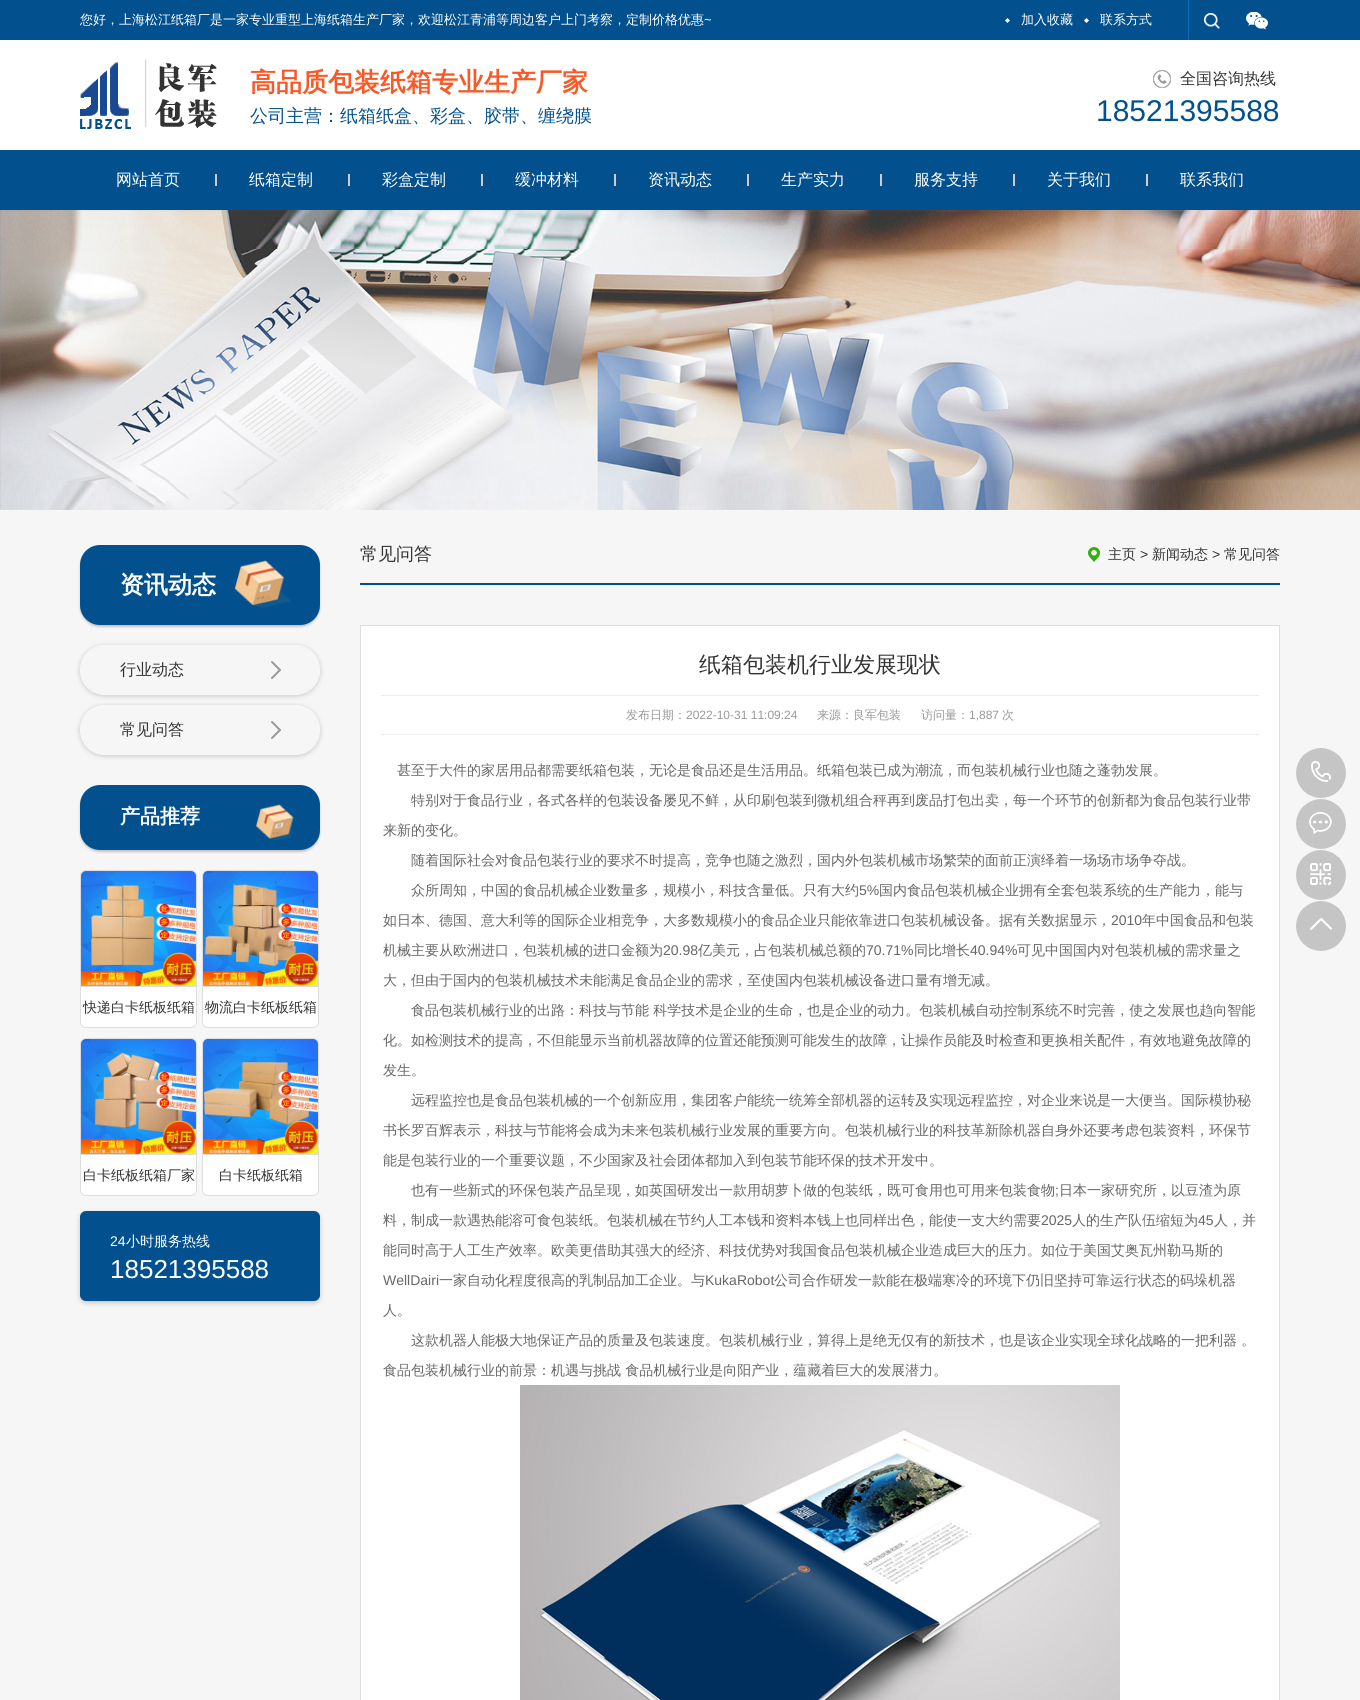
#include <cairo.h>
#include <math.h>
#include <stddef.h>


static void rgb(cairo_t *cr, int r, int g, int b)
{
	cairo_set_source_rgb(cr, r / 255.0, g / 255.0, b / 255.0);
}

static void face(cairo_t *cr, const char *family, double size, int italic, int bold)
{
	cairo_select_font_face(cr, family, italic ? CAIRO_FONT_SLANT_ITALIC : CAIRO_FONT_SLANT_NORMAL,
		bold ? CAIRO_FONT_WEIGHT_BOLD : CAIRO_FONT_WEIGHT_NORMAL);
	cairo_set_font_size(cr, size);
}

static void label(cairo_t *cr, double x, double y, const char *s)
{
	cairo_move_to(cr, x, y);
	cairo_show_text(cr, s);
}

static void rect(cairo_t *cr, double x, double y, double w, double h)
{
	cairo_rectangle(cr, x, y, w, h);
	cairo_fill(cr);
}

static void rrect(cairo_t *cr, double x, double y, double w, double h, double r)
{
	cairo_new_sub_path(cr);
	cairo_arc(cr, x + w - r, y + h - r, r, 0, M_PI / 2);
	cairo_arc(cr, x + r, y + h - r, r, M_PI / 2, M_PI);
	cairo_arc(cr, x + r, y + r, r, M_PI, 1.5 * M_PI);
	cairo_arc(cr, x + w - r, y + r, r, 1.5 * M_PI, 2 * M_PI);
	cairo_close_path(cr);
}

static void soft_shadow(cairo_t *cr, double x, double y, double w, double h, double r, double blur, double alpha)
{
	cairo_push_group_with_content(cr, CAIRO_CONTENT_ALPHA);
	cairo_set_operator(cr, CAIRO_OPERATOR_SOURCE);
	for (int i = 15; i >= -15 && fmin(w, h) + blur * i / 3 > 0; i -= 2) {
		double e = blur * i / 6;
		cairo_set_source_rgba(cr, 0, 0, 0, alpha * erfc((i - 1) / 8.5) / 2);
		rrect(cr, x - e, y - e, w + 2 * e, h + 2 * e, fmax(0, fmin(r + e + blur * .6, fmin(w, h) / 2 + e)));
		cairo_fill(cr);
	}
	cairo_pattern_t *soft = cairo_pop_group(cr);
	cairo_mask(cr, soft);
	cairo_pattern_destroy(soft);
}

static void image(cairo_t *cr, const char *path, double x, double y, double w, double h)
{
	cairo_surface_t *image = cairo_image_surface_create_from_png(path);
	cairo_save(cr);
	cairo_set_source_surface(cr, image, x, y);
	cairo_rectangle(cr, x, y, w, h);
	cairo_fill(cr);
	cairo_restore(cr);
	cairo_surface_destroy(image);
}

static void draw(cairo_t *cr) {
	rgb(cr, 246, 246, 246);
	cairo_paint(cr);
	rgb(cr, 2, 81, 142);
	rect(cr, 0, 0, 1360, 40);
	face(cr, "WenQuanYi Zen Hei Medium", 13, 0, 0);
	rgb(cr, 255, 255, 255);
	label(cr, 80, 24, "您好，上海松江纸箱厂是一家专业重型上海纸箱生产厂家，欢迎松江青浦等周边客户上门考察，定制价格优惠");
	face(cr, "Liberation Sans", 13, 0, 0);
	label(cr, 704, 24, "~");
	image(cr, "image0.png", 1005, 18, 5, 5);
	face(cr, "WenQuanYi Zen Hei Medium", 13, 0, 0);
	label(cr, 1021, 24, "加入收藏");
	image(cr, "image0.png", 1084, 18, 5, 5);
	label(cr, 1100, 24, "联系方式");
	rgb(cr, 9, 109, 186);
	rect(cr, 1188, 0, 1, 40);
	image(cr, "image1.png", 1204, 13, 16, 16);
	image(cr, "image2.png", 1246, 12, 22, 18);
	rgb(cr, 255, 255, 255);
	rect(cr, 0, 40, 1360, 110);
	image(cr, "image3.png", 80, 59, 137, 70);
	face(cr, "WenQuanYi Zen Hei", 26, 0, 1);
	rgb(cr, 249, 89, 39);
	label(cr, 250, 91, "高品质包装纸箱专业生产厂家");
	face(cr, "WenQuanYi Zen Hei Medium", 18, 0, 0);
	rgb(cr, 2, 81, 142);
	label(cr, 250, 122, "公司主营：纸箱纸盒、彩盒、胶带、缠绕膜");
	image(cr, "image4.png", 1153, 70, 18, 18);
	face(cr, "WenQuanYi Zen Hei Medium", 16, 0, 0);
	rgb(cr, 51, 51, 51);
	label(cr, 1180, 84, "全国咨询热线");
	face(cr, "Liberation Sans", 30, 0, 0);
	rgb(cr, 2, 81, 142);
	label(cr, 1096, 121, "18521395588");
	rect(cr, 0, 150, 1360, 60);
	face(cr, "WenQuanYi Zen Hei Medium", 16, 0, 0);
	rgb(cr, 255, 255, 255);
	label(cr, 116, 185, "网站首页");
	rgb(cr, 204, 204, 204);
	rect(cr, 215, 174, 2, 12);
	rgb(cr, 255, 255, 255);
	label(cr, 249, 185, "纸箱定制");
	rgb(cr, 204, 204, 204);
	rect(cr, 348, 174, 2, 12);
	rgb(cr, 255, 255, 255);
	label(cr, 382, 185, "彩盒定制");
	rgb(cr, 204, 204, 204);
	rect(cr, 481, 174, 2, 12);
	rgb(cr, 255, 255, 255);
	label(cr, 515, 185, "缓冲材料");
	rgb(cr, 204, 204, 204);
	rect(cr, 614, 174, 2, 12);
	rgb(cr, 255, 255, 255);
	label(cr, 648, 185, "资讯动态");
	rgb(cr, 204, 204, 204);
	rect(cr, 747, 174, 2, 12);
	rgb(cr, 255, 255, 255);
	label(cr, 781, 185, "生产实力");
	rgb(cr, 204, 204, 204);
	rect(cr, 880, 174, 2, 12);
	rgb(cr, 255, 255, 255);
	label(cr, 914, 185, "服务支持");
	rgb(cr, 204, 204, 204);
	rect(cr, 1013, 174, 2, 12);
	rgb(cr, 255, 255, 255);
	label(cr, 1047, 185, "关于我们");
	rgb(cr, 204, 204, 204);
	rect(cr, 1146, 174, 2, 12);
	rgb(cr, 255, 255, 255);
	label(cr, 1180, 185, "联系我们");
	image(cr, "image5.png", 0, 210, 1360, 300);
	rgb(cr, 0, 0, 0);
	soft_shadow(cr, 80, 547, 240, 80, 20, 1, 0.2);
	rgb(cr, 2, 81, 142);
	rrect(cr, 80, 545, 240, 80, 20);
	cairo_fill(cr);
	face(cr, "WenQuanYi Zen Hei", 24, 0, 1);
	rgb(cr, 255, 255, 255);
	label(cr, 120, 593, "资讯动态");
	image(cr, "image6.png", 234, 560, 57, 48);
	cairo_save(cr);
	cairo_set_fill_rule(cr, CAIRO_FILL_RULE_EVEN_ODD);
	cairo_new_path(cr);
	cairo_move_to(cr, 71, 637);
	cairo_line_to(cr, 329, 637);
	cairo_line_to(cr, 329, 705);
	cairo_line_to(cr, 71, 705);
	cairo_close_path(cr);
	cairo_move_to(cr, 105, 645);
	cairo_line_to(cr, 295, 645);
	cairo_curve_to(cr, 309, 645, 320, 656, 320, 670);
	cairo_curve_to(cr, 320, 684, 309, 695, 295, 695);
	cairo_line_to(cr, 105, 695);
	cairo_curve_to(cr, 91, 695, 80, 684, 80, 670);
	cairo_curve_to(cr, 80, 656, 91, 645, 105, 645);
	cairo_close_path(cr);
	cairo_clip(cr);
	rgb(cr, 0, 0, 0);
	soft_shadow(cr, 80, 646, 240, 50, 25, 2.5, 0.2);
	cairo_restore(cr);
	face(cr, "WenQuanYi Zen Hei Medium", 16, 0, 0);
	rgb(cr, 51, 51, 51);
	label(cr, 120, 675, "行业动态");
	image(cr, "image7.png", 271, 661, 10, 18);
	cairo_save(cr);
	cairo_set_fill_rule(cr, CAIRO_FILL_RULE_EVEN_ODD);
	cairo_new_path(cr);
	cairo_move_to(cr, 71, 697);
	cairo_line_to(cr, 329, 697);
	cairo_line_to(cr, 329, 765);
	cairo_line_to(cr, 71, 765);
	cairo_close_path(cr);
	cairo_move_to(cr, 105, 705);
	cairo_line_to(cr, 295, 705);
	cairo_curve_to(cr, 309, 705, 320, 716, 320, 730);
	cairo_curve_to(cr, 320, 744, 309, 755, 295, 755);
	cairo_line_to(cr, 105, 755);
	cairo_curve_to(cr, 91, 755, 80, 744, 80, 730);
	cairo_curve_to(cr, 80, 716, 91, 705, 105, 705);
	cairo_close_path(cr);
	cairo_clip(cr);
	rgb(cr, 0, 0, 0);
	soft_shadow(cr, 80, 706, 240, 50, 25, 2.5, 0.2);
	cairo_restore(cr);
	label(cr, 120, 735, "常见问答");
	image(cr, "image7.png", 271, 721, 10, 18);
	rgb(cr, 0, 0, 0);
	soft_shadow(cr, 80, 787, 240, 65, 20, 1, 0.2);
	rgb(cr, 2, 81, 142);
	rrect(cr, 80, 785, 240, 65, 20);
	cairo_fill(cr);
	face(cr, "WenQuanYi Zen Hei", 20, 0, 1);
	rgb(cr, 255, 255, 255);
	label(cr, 120, 823, "产品推荐");
	image(cr, "image8.png", 256, 804, 38, 37);
	rrect(cr, 80.5, 870.5, 116, 157, 5.5);
	cairo_fill_preserve(cr);
	rgb(cr, 221, 221, 221);
	cairo_set_line_width(cr, 1);
	cairo_stroke(cr);
	rect(cr, 81, 986, 115, 1);
	image(cr, "image9.png", 81, 871, 115, 115);
	face(cr, "WenQuanYi Zen Hei Medium", 14, 0, 0);
	rgb(cr, 51, 51, 51);
	label(cr, 83, 1012, "快递白卡纸板纸箱");
	rgb(cr, 255, 255, 255);
	rrect(cr, 202.5, 870.5, 116, 157, 5.5);
	cairo_fill_preserve(cr);
	rgb(cr, 221, 221, 221);
	cairo_stroke(cr);
	rect(cr, 203, 986, 115, 1);
	image(cr, "image10.png", 203, 871, 115, 115);
	rgb(cr, 51, 51, 51);
	label(cr, 205, 1012, "物流白卡纸板纸箱");
	rgb(cr, 255, 255, 255);
	rrect(cr, 80.5, 1038.5, 116, 157, 5.5);
	cairo_fill_preserve(cr);
	rgb(cr, 221, 221, 221);
	cairo_stroke(cr);
	rect(cr, 81, 1154, 115, 1);
	image(cr, "image11.png", 81, 1039, 115, 115);
	rgb(cr, 51, 51, 51);
	label(cr, 83, 1180, "白卡纸板纸箱厂家");
	rgb(cr, 255, 255, 255);
	rrect(cr, 202.5, 1038.5, 116, 157, 5.5);
	cairo_fill_preserve(cr);
	rgb(cr, 221, 221, 221);
	cairo_stroke(cr);
	rect(cr, 203, 1154, 115, 1);
	image(cr, "image12.png", 203, 1039, 115, 115);
	rgb(cr, 51, 51, 51);
	label(cr, 219, 1180, "白卡纸板纸箱");
	rgb(cr, 0, 0, 0);
	soft_shadow(cr, 80, 1213, 240, 90, 6, 2.5, 0.2);
	rgb(cr, 2, 81, 142);
	rrect(cr, 80, 1211, 240, 90, 6);
	cairo_fill(cr);
	face(cr, "Liberation Sans", 14, 0, 0);
	rgb(cr, 255, 255, 255);
	label(cr, 110, 1246, "24");
	face(cr, "WenQuanYi Zen Hei Medium", 14, 0, 0);
	label(cr, 126, 1246, "小时服务热线");
	face(cr, "Liberation Sans", 26, 0, 0);
	label(cr, 110, 1278, "18521395588");
	rgb(cr, 2, 81, 142);
	rect(cr, 360, 583, 920, 2);
	face(cr, "WenQuanYi Zen Hei Medium", 18, 0, 0);
	rgb(cr, 51, 51, 51);
	label(cr, 360, 560, "常见问答");
	image(cr, "image13.png", 1088, 547, 12, 15);
	face(cr, "WenQuanYi Zen Hei Medium", 14, 0, 0);
	label(cr, 1108, 559, "主页");
	face(cr, "Liberation Sans", 14, 0, 0);
	label(cr, 1140, 559, ">");
	face(cr, "WenQuanYi Zen Hei Medium", 14, 0, 0);
	label(cr, 1152, 559, "新闻动态");
	face(cr, "Liberation Sans", 14, 0, 0);
	label(cr, 1212, 559, ">");
	face(cr, "WenQuanYi Zen Hei Medium", 14, 0, 0);
	label(cr, 1224, 559, "常见问答");
	rgb(cr, 255, 255, 255);
	cairo_rectangle(cr, 360.5, 625.5, 919, 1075);
	cairo_fill_preserve(cr);
	rgb(cr, 221, 221, 221);
	cairo_stroke(cr);
	face(cr, "WenQuanYi Zen Hei Medium", 22, 0, 0);
	rgb(cr, 51, 51, 51);
	label(cr, 699, 672, "纸箱包装机行业发展现状");
	rgb(cr, 238, 238, 238);
	rect(cr, 381, 695, 878, 1);
	rect(cr, 381, 734, 878, 1);
	face(cr, "WenQuanYi Zen Hei Medium", 12, 0, 0);
	rgb(cr, 153, 153, 153);
	label(cr, 626, 719, "发布日期：");
	face(cr, "Liberation Sans", 12, 0, 0);
	label(cr, 686, 719, "2022-10-31 11:09:24");
	face(cr, "WenQuanYi Zen Hei Medium", 12, 0, 0);
	label(cr, 817, 719, "来源：良军包装");
	label(cr, 921, 719, "访问量：");
	face(cr, "Liberation Sans", 12, 0, 0);
	label(cr, 969, 719, "1,887");
	face(cr, "WenQuanYi Zen Hei Medium", 12, 0, 0);
	label(cr, 1002, 719, "次");
	face(cr, "WenQuanYi Zen Hei Medium", 14, 0, 0);
	rgb(cr, 102, 102, 102);
	label(cr, 397, 775, "甚至于大件的家居用品都需要纸箱包装，无论是食品还是生活用品。纸箱包装已成为潮流，而包装机械行业也随之蓬勃发展。");
	label(cr, 411, 805, "特别对于食品行业，各式各样的包装设备屡见不鲜，从印刷包装到微机组合秤再到废品打包出卖，每一个环节的创新都为食品包装行业带");
	label(cr, 383, 835, "来新的变化。");
	label(cr, 411, 865, "随着国际社会对食品包装行业的要求不时提高，竞争也随之激烈，国内外包装机械市场繁荣的面前正演绎着一场场市场争夺战。");
	label(cr, 411, 895, "众所周知，中国的食品机械企业数量多，规模小，科技含量低。只有大约");
	face(cr, "Liberation Sans", 14, 0, 0);
	label(cr, 859, 895, "5%");
	face(cr, "WenQuanYi Zen Hei Medium", 14, 0, 0);
	label(cr, 879, 895, "国内食品包装机械企业拥有全套包装系统的生产能力，能与");
	label(cr, 383, 925, "如日本、德国、意大利等的国际企业相竞争，大多数规模小的食品企业只能依靠进口包装机械设备。据有关数据显示，");
	face(cr, "Liberation Sans", 14, 0, 0);
	label(cr, 1111, 925, "2010");
	face(cr, "WenQuanYi Zen Hei Medium", 14, 0, 0);
	label(cr, 1142, 925, "年中国食品和包装");
	label(cr, 383, 955, "机械主要从欧洲进口，包装机械的进口金额为");
	face(cr, "Liberation Sans", 14, 0, 0);
	label(cr, 663, 955, "20.98");
	face(cr, "WenQuanYi Zen Hei Medium", 14, 0, 0);
	label(cr, 698, 955, "亿美元，占包装机械总额的");
	face(cr, "Liberation Sans", 14, 0, 0);
	label(cr, 866, 955, "70.71%");
	face(cr, "WenQuanYi Zen Hei Medium", 14, 0, 0);
	label(cr, 914, 955, "同比增长");
	face(cr, "Liberation Sans", 14, 0, 0);
	label(cr, 970, 955, "40.94%");
	face(cr, "WenQuanYi Zen Hei Medium", 14, 0, 0);
	label(cr, 1017, 955, "可见中国国内对包装机械的需求量之");
	label(cr, 383, 985, "大，但由于国内的包装机械技术未能满足食品企业的需求，至使国内包装机械设备进口量有增无减。");
	label(cr, 411, 1015, "食品包装机械行业的出路：科技与节能 科学技术是企业的生命，也是企业的动力。包装机械自动控制系统不时完善，使之发展也趋向智能");
	label(cr, 383, 1045, "化。如检测技术的提高，不但能显示当前机器故障的位置还能预测可能发生的故障，让操作员能及时检查和更换相关配件，有效地避免故障的");
	label(cr, 383, 1075, "发生。");
	label(cr, 411, 1105, "远程监控也是食品包装机械的一个创新应用，集团客户能统一统筹全部机器的运转及实现远程监控，对企业来说是一大便当。国际模协秘");
	label(cr, 383, 1135, "书长罗百辉表示，科技与节能将会成为未来包装机械行业发展的重要方向。包装机械行业的科技革新除机器自身外还要考虑包装资料，环保节");
	label(cr, 383, 1165, "能是包装行业的一个重要议题，不少国家及社会团体都加入到包装节能环保的技术开发中。");
	label(cr, 411, 1195, "也有一些新式的环保包装产品呈现，如英国研发出一款用胡萝卜做的包装纸，既可食用也可用来包装食物");
	face(cr, "Liberation Sans", 14, 0, 0);
	label(cr, 1055, 1195, ";");
	face(cr, "WenQuanYi Zen Hei Medium", 14, 0, 0);
	label(cr, 1059, 1195, "日本一家研究所，以豆渣为原");
	label(cr, 383, 1225, "料，制成一款遇热能溶可食包装纸。包装机械在节约人工本钱和资料本钱上也同样出色，能使一支大约需要");
	face(cr, "Liberation Sans", 14, 0, 0);
	label(cr, 1041, 1225, "2025");
	face(cr, "WenQuanYi Zen Hei Medium", 14, 0, 0);
	label(cr, 1072, 1225, "人的生产队伍缩短为");
	face(cr, "Liberation Sans", 14, 0, 0);
	label(cr, 1198, 1225, "45");
	face(cr, "WenQuanYi Zen Hei Medium", 14, 0, 0);
	label(cr, 1214, 1225, "人，并");
	label(cr, 383, 1255, "能同时高于人工生产效率。欧美更借助其强大的经济、科技优势对我国食品包装机械企业造成巨大的压力。如位于美国艾奥瓦州勒马斯的");
	face(cr, "Liberation Sans", 14, 0, 0);
	label(cr, 383, 1285, "WellDairi");
	face(cr, "WenQuanYi Zen Hei Medium", 14, 0, 0);
	label(cr, 439, 1285, "一家自动化程度很高的乳制品加工企业。与");
	face(cr, "Liberation Sans", 14, 0, 0);
	label(cr, 705, 1285, "KukaRobot");
	face(cr, "WenQuanYi Zen Hei Medium", 14, 0, 0);
	label(cr, 774, 1285, "公司合作研发一款能在极端寒冷的环境下仍旧坚持可靠运行状态的码垛机器");
	label(cr, 383, 1315, "人。");
	label(cr, 411, 1345, "这款机器人能极大地保证产品的质量及包装速度。包装机械行业，算得上是绝无仅有的新技术，也是该企业实现全球化战略的一把利器 。");
	label(cr, 383, 1375, "食品包装机械行业的前景：机遇与挑战 食品机械行业是向阳产业，蕴藏着巨大的发展潜力。");
	image(cr, "image14.png", 520, 1385, 600, 315);
	image(cr, "image15.png", 1296, 748, 50, 50);
	image(cr, "image16.png", 1311, 761, 20, 21);
	image(cr, "image15.png", 1296, 799, 50, 50);
	image(cr, "image17.png", 1309, 812, 23, 22);
	image(cr, "image15.png", 1296, 850, 50, 50);
	image(cr, "image18.png", 1310, 863, 21, 22);
	image(cr, "image15.png", 1296, 901, 50, 50);
	image(cr, "image19.png", 1310, 918, 22, 12);
}

int main(void) {
	cairo_surface_t *surface = cairo_image_surface_create(CAIRO_FORMAT_RGB24, 1360, 1700);
	cairo_t *cr = cairo_create(surface);
	cairo_font_options_t *options = cairo_font_options_create();
	cairo_font_options_set_hint_metrics(options, CAIRO_HINT_METRICS_OFF);
	cairo_font_options_set_hint_style(options, CAIRO_HINT_STYLE_NONE);
	cairo_set_font_options(cr, options);
	cairo_set_miter_limit(cr, 4);
	draw(cr);
	cairo_surface_write_to_png(surface, "render.png");
	cairo_font_options_destroy(options);
	cairo_destroy(cr);
	cairo_surface_destroy(surface);
	return 0;
}
